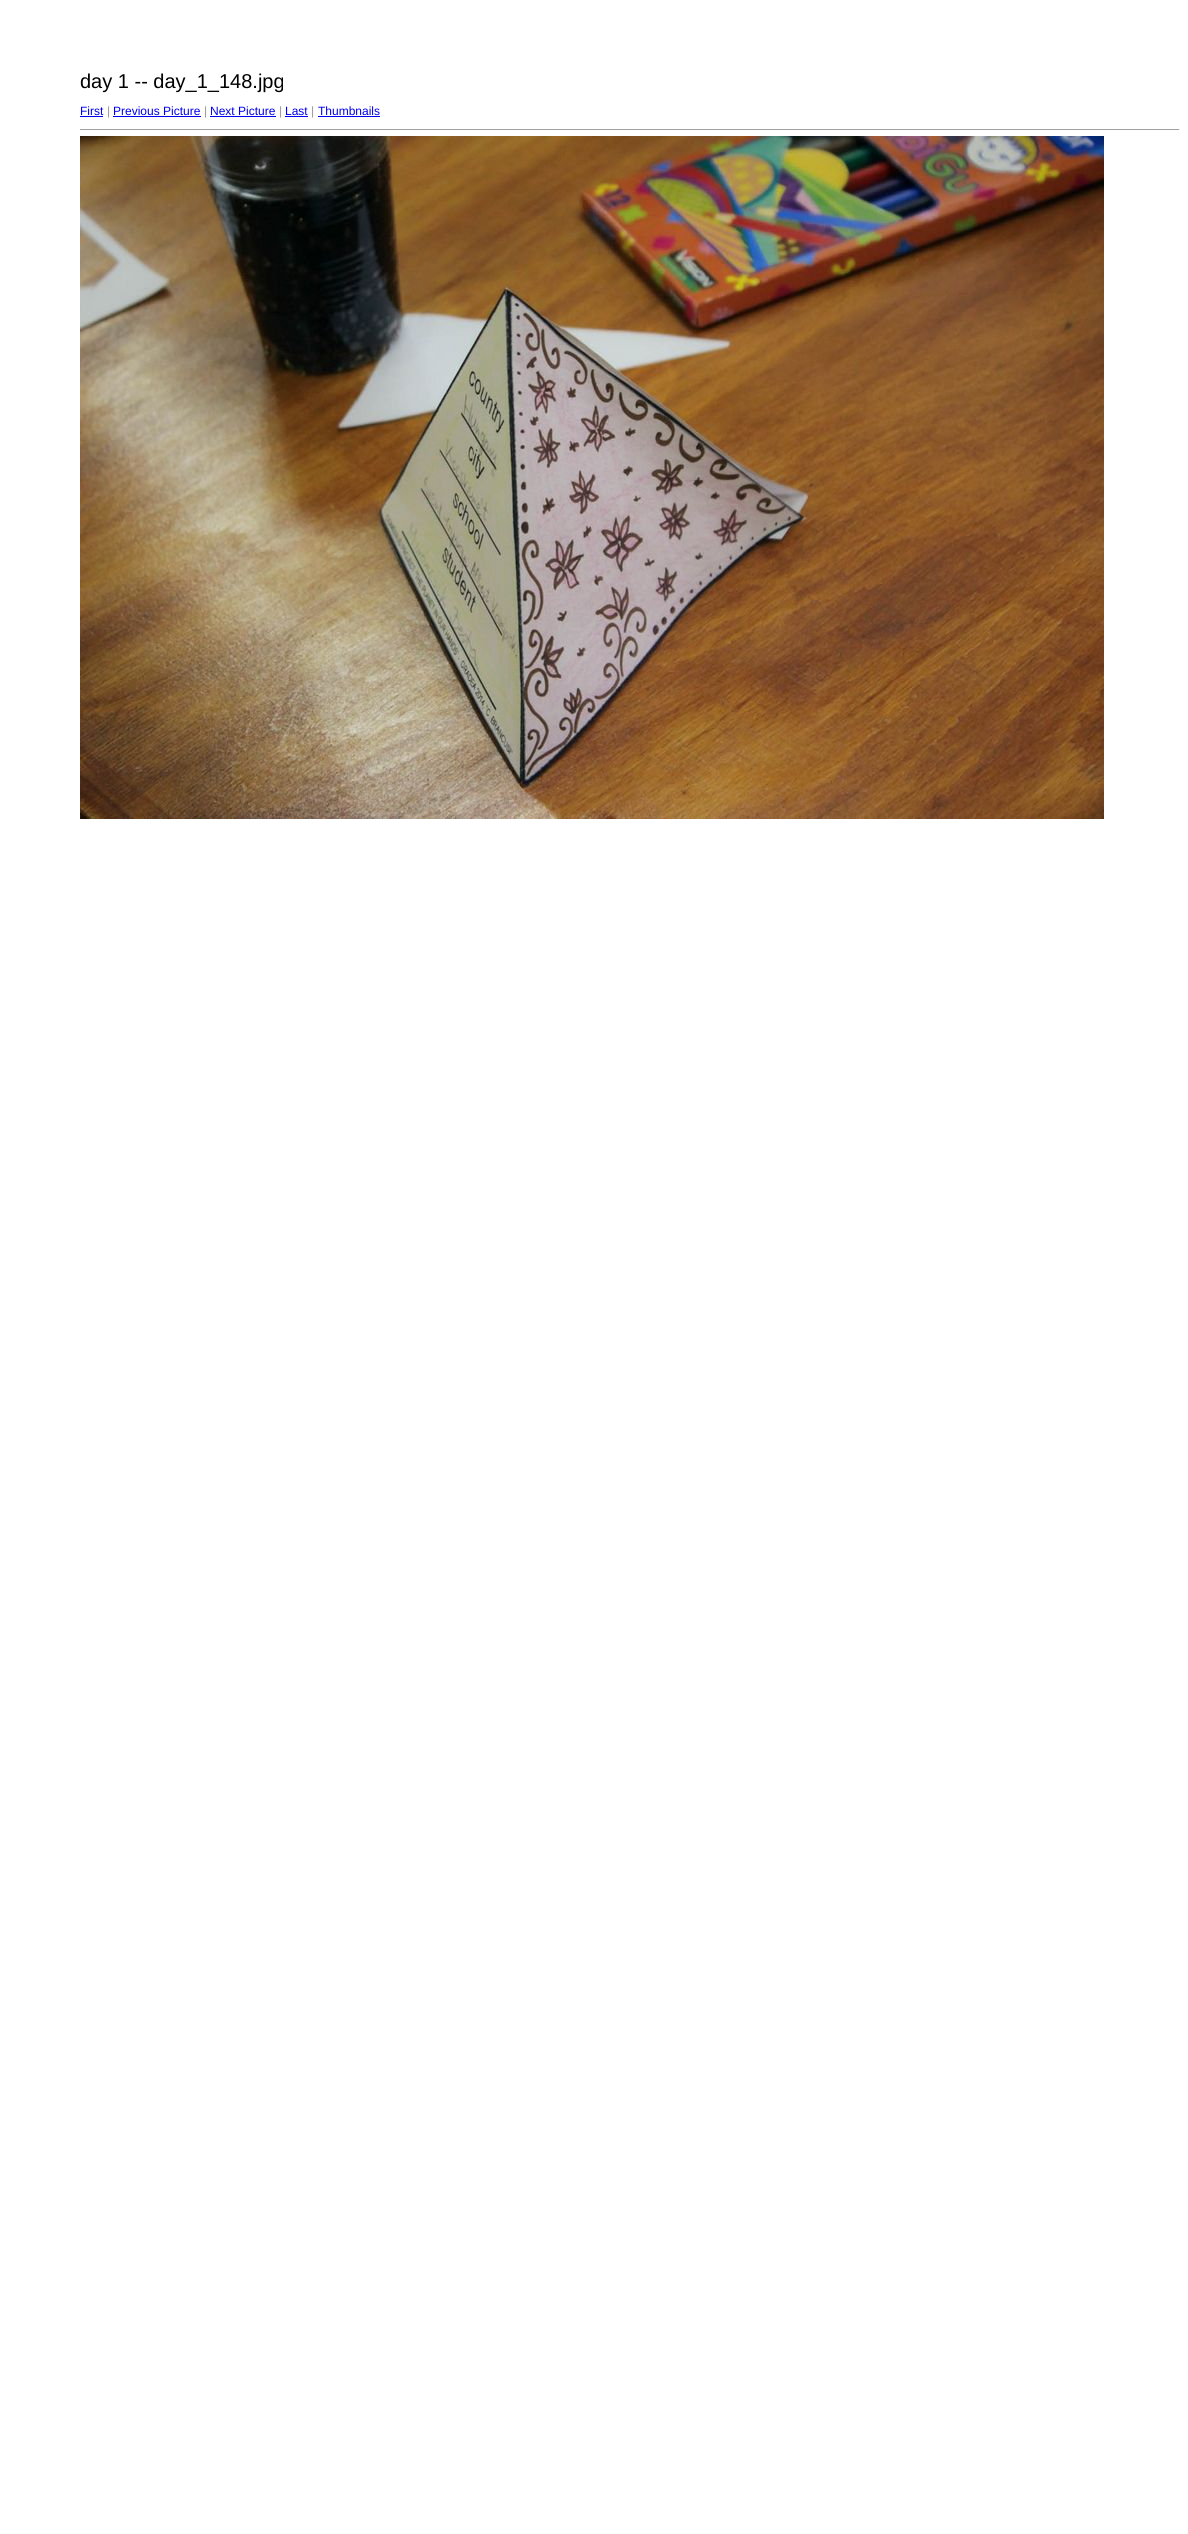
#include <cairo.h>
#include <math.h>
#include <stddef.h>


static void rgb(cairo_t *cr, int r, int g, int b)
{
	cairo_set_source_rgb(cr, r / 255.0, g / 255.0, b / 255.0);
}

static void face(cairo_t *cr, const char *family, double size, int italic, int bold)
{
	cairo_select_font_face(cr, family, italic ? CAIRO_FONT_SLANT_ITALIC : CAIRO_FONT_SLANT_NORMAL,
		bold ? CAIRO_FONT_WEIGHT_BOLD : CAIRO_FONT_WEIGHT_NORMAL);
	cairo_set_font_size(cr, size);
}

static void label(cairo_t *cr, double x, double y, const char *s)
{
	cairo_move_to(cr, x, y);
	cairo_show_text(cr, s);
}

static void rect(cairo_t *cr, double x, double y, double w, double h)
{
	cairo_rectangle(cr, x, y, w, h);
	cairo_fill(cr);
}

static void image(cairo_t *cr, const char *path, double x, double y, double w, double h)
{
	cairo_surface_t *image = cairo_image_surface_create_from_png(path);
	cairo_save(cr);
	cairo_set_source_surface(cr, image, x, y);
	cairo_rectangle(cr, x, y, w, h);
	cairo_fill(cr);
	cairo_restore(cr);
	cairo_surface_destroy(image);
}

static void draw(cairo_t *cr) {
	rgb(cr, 255, 255, 255);
	cairo_paint(cr);
	face(cr, "Liberation Sans", 20, 0, 0);
	rgb(cr, 0, 0, 0);
	label(cr, 80, 88, "day 1 -- day_1_148.jpg");
	face(cr, "Liberation Sans", 12, 0, 0);
	rgb(cr, 0, 0, 238);
	label(cr, 80, 115, "First");
	rect(cr, 80, 116, 23, 1);
	rgb(cr, 151, 151, 151);
	label(cr, 107, 115, "|");
	rgb(cr, 0, 0, 238);
	label(cr, 113, 115, "Previous Picture");
	rect(cr, 113, 116, 88, 1);
	rgb(cr, 151, 151, 151);
	label(cr, 204, 115, "|");
	rgb(cr, 0, 0, 238);
	label(cr, 210, 115, "Next Picture");
	rect(cr, 210, 116, 66, 1);
	rgb(cr, 151, 151, 151);
	label(cr, 279, 115, "|");
	rgb(cr, 0, 0, 238);
	label(cr, 285, 115, "Last");
	rect(cr, 285, 116, 23, 1);
	rgb(cr, 151, 151, 151);
	label(cr, 311, 115, "|");
	rgb(cr, 0, 0, 238);
	label(cr, 318, 115, "Thumbnails");
	rect(cr, 318, 116, 62, 1);
	rgb(cr, 159, 159, 159);
	rect(cr, 80, 129, 1100, 1);
	rgb(cr, 238, 238, 238);
	rect(cr, 1179, 129, 1, 1);
	image(cr, "image0.png", 80, 136, 1024, 683);
}

int main(void) {
	cairo_surface_t *surface = cairo_image_surface_create(CAIRO_FORMAT_RGB24, 1188, 2534);
	cairo_t *cr = cairo_create(surface);
	cairo_font_options_t *options = cairo_font_options_create();
	cairo_font_options_set_hint_metrics(options, CAIRO_HINT_METRICS_OFF);
	cairo_font_options_set_hint_style(options, CAIRO_HINT_STYLE_NONE);
	cairo_set_font_options(cr, options);
	cairo_set_miter_limit(cr, 4);
	draw(cr);
	cairo_surface_write_to_png(surface, "render.png");
	cairo_font_options_destroy(options);
	cairo_destroy(cr);
	cairo_surface_destroy(surface);
	return 0;
}
